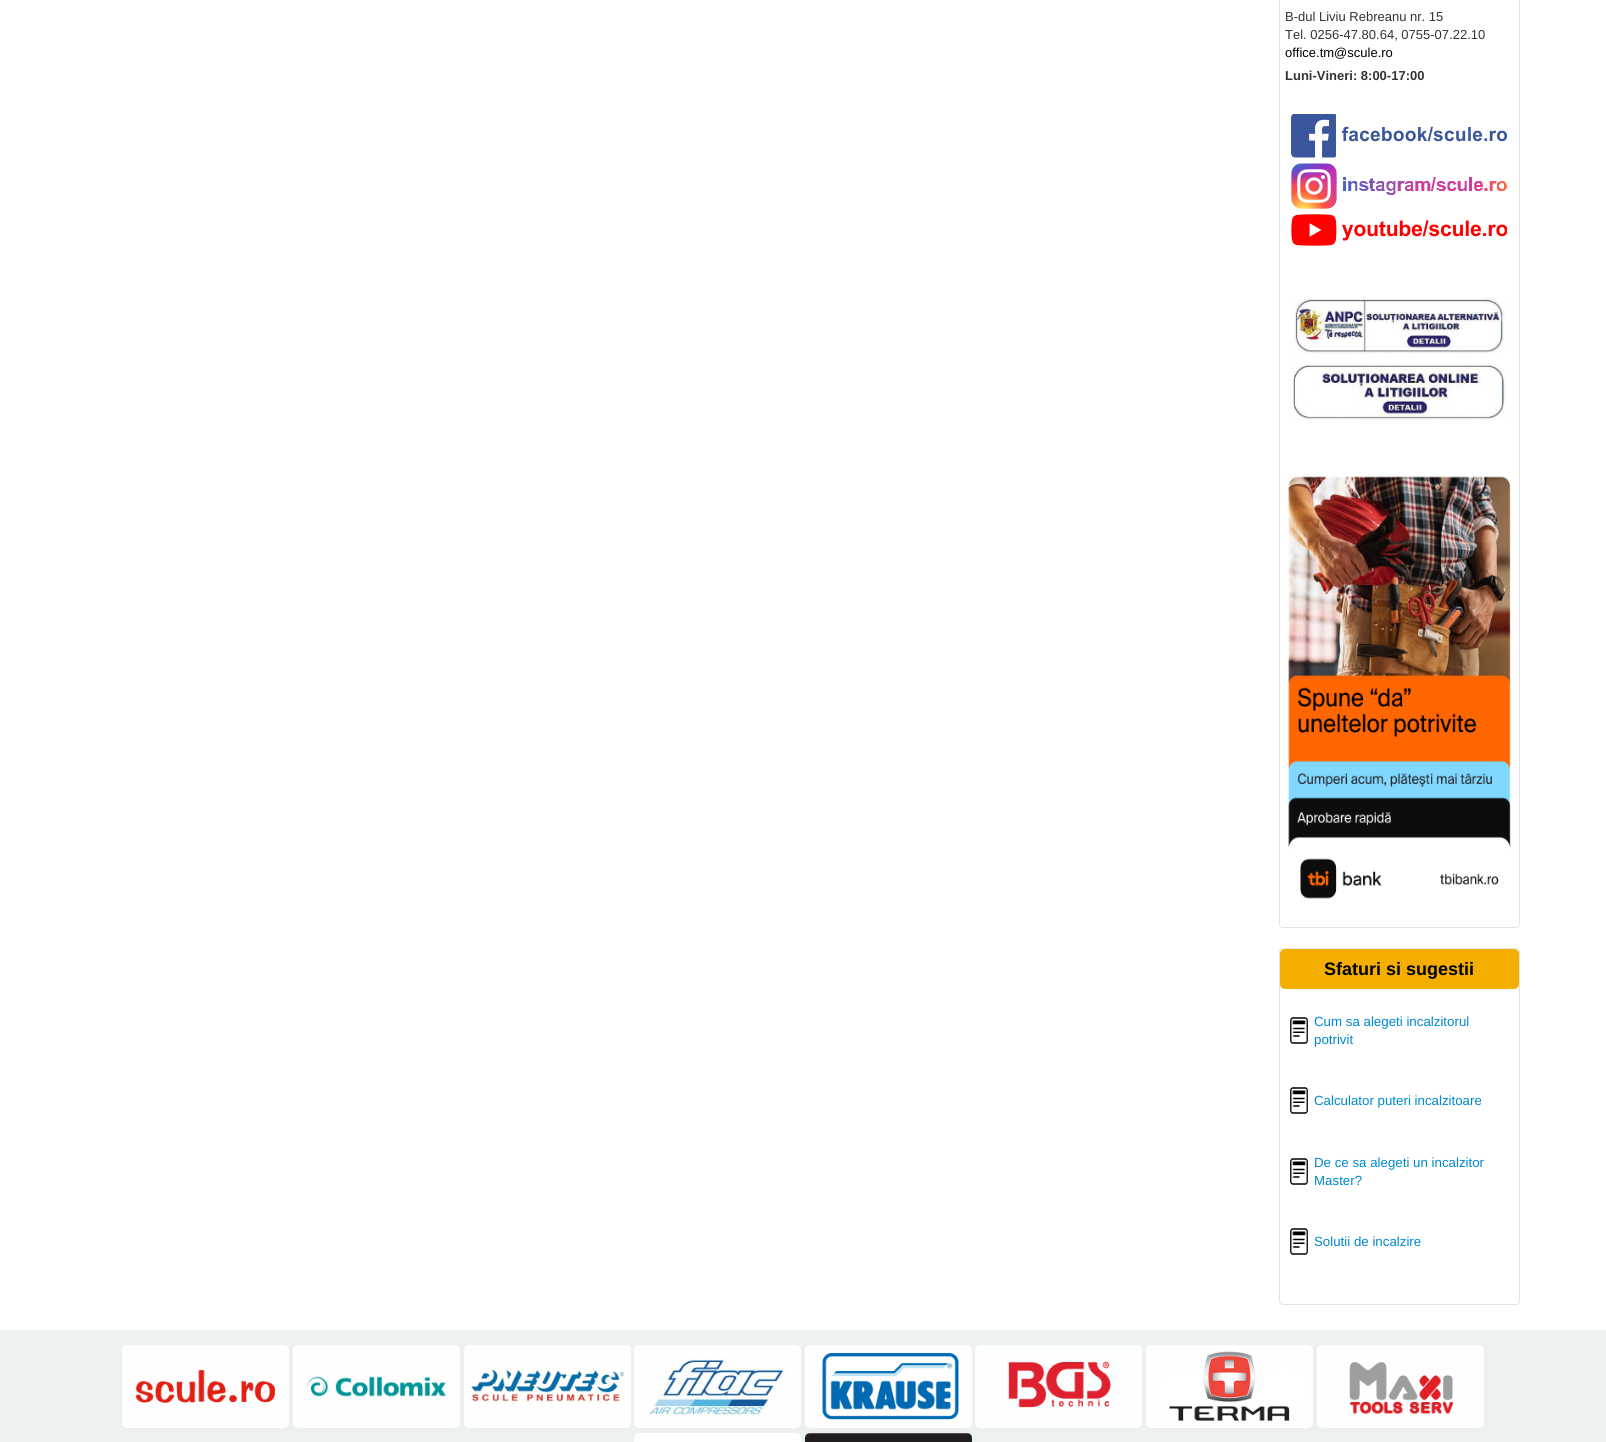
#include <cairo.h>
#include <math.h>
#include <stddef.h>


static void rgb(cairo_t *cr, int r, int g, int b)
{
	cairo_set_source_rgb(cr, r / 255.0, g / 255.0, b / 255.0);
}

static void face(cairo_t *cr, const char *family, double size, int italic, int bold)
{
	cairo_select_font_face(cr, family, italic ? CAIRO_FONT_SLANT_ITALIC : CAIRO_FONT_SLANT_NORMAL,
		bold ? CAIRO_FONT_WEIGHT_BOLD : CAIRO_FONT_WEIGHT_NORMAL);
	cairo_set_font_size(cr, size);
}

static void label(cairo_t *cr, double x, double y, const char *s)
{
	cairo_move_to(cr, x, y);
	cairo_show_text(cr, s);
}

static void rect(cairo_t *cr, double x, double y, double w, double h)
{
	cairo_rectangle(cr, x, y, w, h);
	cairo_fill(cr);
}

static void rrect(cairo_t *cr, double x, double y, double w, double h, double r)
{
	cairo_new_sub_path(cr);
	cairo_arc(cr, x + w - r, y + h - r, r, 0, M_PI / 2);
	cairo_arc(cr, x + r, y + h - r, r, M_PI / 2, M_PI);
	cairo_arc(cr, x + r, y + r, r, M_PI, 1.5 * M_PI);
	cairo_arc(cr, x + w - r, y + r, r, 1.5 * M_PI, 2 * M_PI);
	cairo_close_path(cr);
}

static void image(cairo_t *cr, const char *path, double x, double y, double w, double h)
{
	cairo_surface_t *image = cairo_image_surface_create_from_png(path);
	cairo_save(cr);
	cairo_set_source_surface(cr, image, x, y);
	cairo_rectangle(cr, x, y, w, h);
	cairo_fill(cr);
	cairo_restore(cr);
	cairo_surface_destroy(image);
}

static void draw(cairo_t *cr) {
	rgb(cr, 255, 255, 255);
	cairo_paint(cr);
	rrect(cr, 1279.5, -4.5, 240, 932, 3.5);
	rgb(cr, 227, 227, 227);
	cairo_set_line_width(cr, 1);
	cairo_stroke(cr);
	face(cr, "Liberation Sans", 13, 0, 0);
	rgb(cr, 51, 51, 51);
	label(cr, 1285, 21, "B-dul Liviu Rebreanu nr. 15");
	label(cr, 1285, 39, "Tel. 0256-47.80.64, 0755-07.22.10");
	rgb(cr, 0, 0, 0);
	label(cr, 1285, 57, "office.tm@scule.ro");
	face(cr, "Liberation Sans", 13, 0, 1);
	rgb(cr, 51, 51, 51);
	label(cr, 1285, 80, "Luni-Vineri: 8:00-17:00");
	image(cr, "image0.png", 1291, 114, 216, 44);
	image(cr, "image1.png", 1291, 163, 216, 46);
	image(cr, "image2.png", 1291, 214, 216, 32);
	image(cr, "image3.png", 1292, 297, 213, 60);
	image(cr, "image4.png", 1293, 364, 213, 57);
	image(cr, "image5.png", 1288, 476, 223, 423);
	rgb(cr, 242, 242, 242);
	cairo_new_path(cr);
	cairo_move_to(cr, 1283, 950);
	cairo_line_to(cr, 1517, 950);
	cairo_line_to(cr, 1519, 951);
	cairo_line_to(cr, 1519, 953);
	cairo_curve_to(cr, 1519, 951, 1518, 949, 1516, 949);
	cairo_line_to(cr, 1283, 949);
	cairo_curve_to(cr, 1281, 949, 1280, 951, 1280, 953);
	cairo_curve_to(cr, 1280, 951, 1281, 950, 1283, 950);
	cairo_close_path(cr);
	cairo_fill(cr);
	rrect(cr, 1279.5, 948.5, 240, 356, 3.5);
	rgb(cr, 227, 227, 227);
	cairo_stroke(cr);
	rgb(cr, 244, 174, 0);
	rrect(cr, 1280, 949, 239, 40, 5);
	cairo_fill(cr);
	face(cr, "Liberation Sans", 18, 0, 1);
	rgb(cr, 0, 0, 0);
	label(cr, 1324, 975, "Sfaturi si sugestii");
	image(cr, "image6.png", 1290, 1017, 18, 27);
	face(cr, "Liberation Sans", 13.3, 0, 0);
	rgb(cr, 0, 136, 204);
	label(cr, 1314, 1026, "Cum sa alegeti incalzitorul");
	label(cr, 1314, 1044, "potrivit");
	image(cr, "image6.png", 1290, 1087, 18, 27);
	label(cr, 1314, 1105, "Calculator puteri incalzitoare");
	image(cr, "image6.png", 1290, 1158, 18, 27);
	label(cr, 1314, 1167, "De ce sa alegeti un incalzitor");
	label(cr, 1314, 1185, "Master?");
	image(cr, "image6.png", 1290, 1228, 18, 27);
	label(cr, 1314, 1246, "Solutii de incalzire");
	rgb(cr, 236, 240, 241);
	rect(cr, 0, 1330, 1606, 112);
	image(cr, "image7.png", 122, 1345, 167, 83);
	image(cr, "image8.png", 293, 1345, 167, 83);
	image(cr, "image9.png", 464, 1345, 167, 83);
	image(cr, "image10.png", 634, 1345, 167, 83);
	image(cr, "image11.png", 805, 1345, 167, 83);
	image(cr, "image12.png", 975, 1345, 167, 83);
	image(cr, "image13.png", 1146, 1345, 167, 83);
	image(cr, "image14.png", 1317, 1345, 167, 83);
	image(cr, "image15.png", 634, 1433, 167, 9);
	image(cr, "image16.png", 805, 1433, 167, 9);
}

int main(void) {
	cairo_surface_t *surface = cairo_image_surface_create(CAIRO_FORMAT_RGB24, 1606, 1442);
	cairo_t *cr = cairo_create(surface);
	cairo_font_options_t *options = cairo_font_options_create();
	cairo_font_options_set_hint_metrics(options, CAIRO_HINT_METRICS_OFF);
	cairo_font_options_set_hint_style(options, CAIRO_HINT_STYLE_NONE);
	cairo_set_font_options(cr, options);
	cairo_set_miter_limit(cr, 4);
	draw(cr);
	cairo_surface_write_to_png(surface, "render.png");
	cairo_font_options_destroy(options);
	cairo_destroy(cr);
	cairo_surface_destroy(surface);
	return 0;
}
